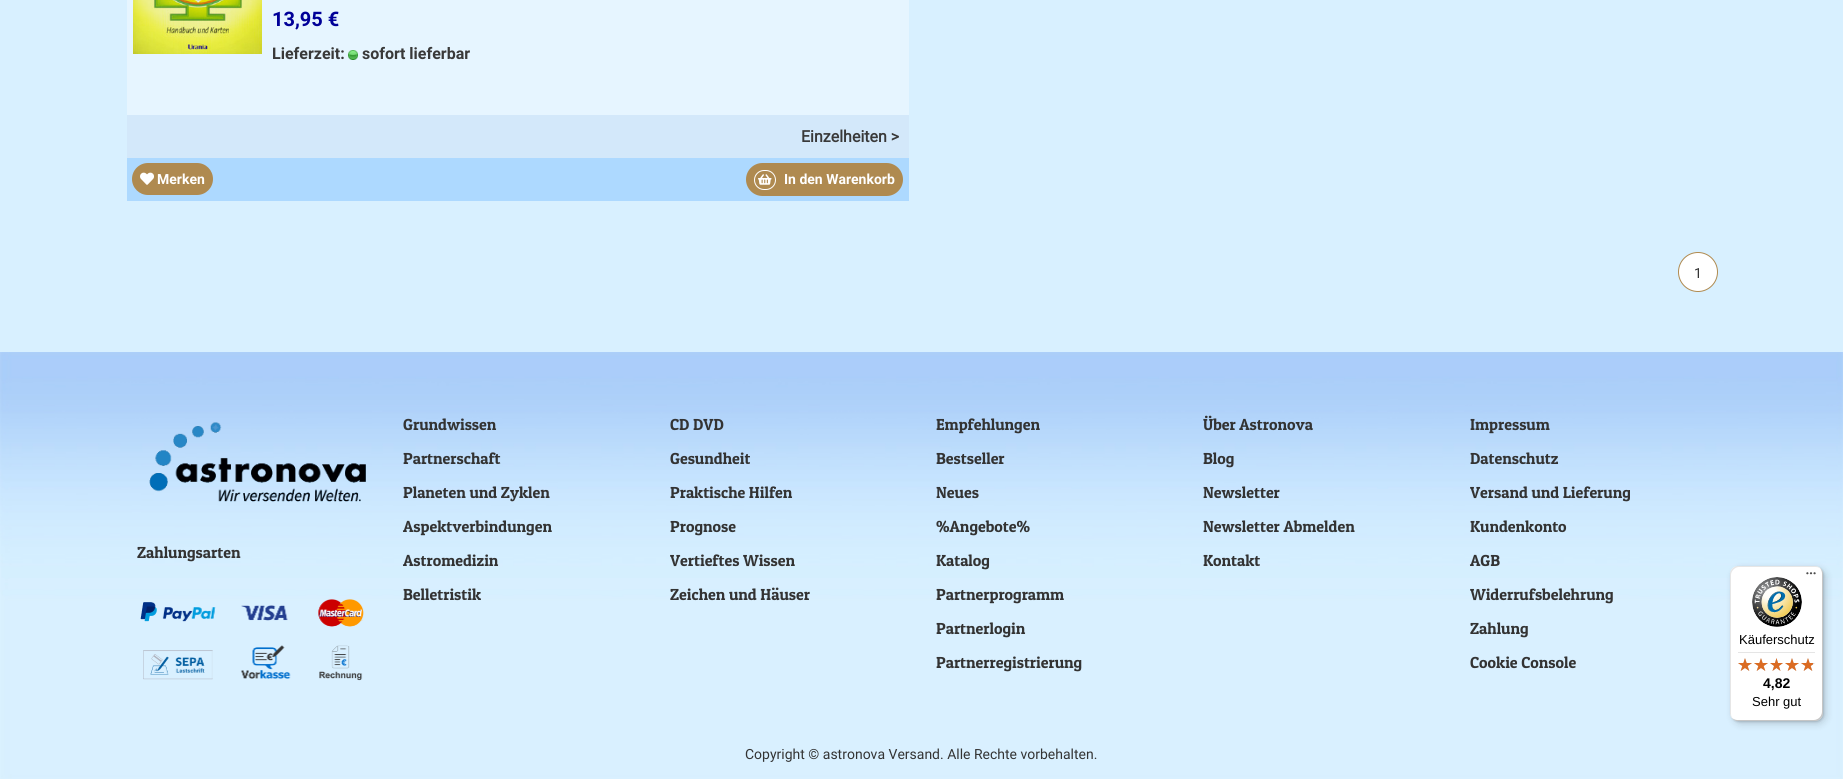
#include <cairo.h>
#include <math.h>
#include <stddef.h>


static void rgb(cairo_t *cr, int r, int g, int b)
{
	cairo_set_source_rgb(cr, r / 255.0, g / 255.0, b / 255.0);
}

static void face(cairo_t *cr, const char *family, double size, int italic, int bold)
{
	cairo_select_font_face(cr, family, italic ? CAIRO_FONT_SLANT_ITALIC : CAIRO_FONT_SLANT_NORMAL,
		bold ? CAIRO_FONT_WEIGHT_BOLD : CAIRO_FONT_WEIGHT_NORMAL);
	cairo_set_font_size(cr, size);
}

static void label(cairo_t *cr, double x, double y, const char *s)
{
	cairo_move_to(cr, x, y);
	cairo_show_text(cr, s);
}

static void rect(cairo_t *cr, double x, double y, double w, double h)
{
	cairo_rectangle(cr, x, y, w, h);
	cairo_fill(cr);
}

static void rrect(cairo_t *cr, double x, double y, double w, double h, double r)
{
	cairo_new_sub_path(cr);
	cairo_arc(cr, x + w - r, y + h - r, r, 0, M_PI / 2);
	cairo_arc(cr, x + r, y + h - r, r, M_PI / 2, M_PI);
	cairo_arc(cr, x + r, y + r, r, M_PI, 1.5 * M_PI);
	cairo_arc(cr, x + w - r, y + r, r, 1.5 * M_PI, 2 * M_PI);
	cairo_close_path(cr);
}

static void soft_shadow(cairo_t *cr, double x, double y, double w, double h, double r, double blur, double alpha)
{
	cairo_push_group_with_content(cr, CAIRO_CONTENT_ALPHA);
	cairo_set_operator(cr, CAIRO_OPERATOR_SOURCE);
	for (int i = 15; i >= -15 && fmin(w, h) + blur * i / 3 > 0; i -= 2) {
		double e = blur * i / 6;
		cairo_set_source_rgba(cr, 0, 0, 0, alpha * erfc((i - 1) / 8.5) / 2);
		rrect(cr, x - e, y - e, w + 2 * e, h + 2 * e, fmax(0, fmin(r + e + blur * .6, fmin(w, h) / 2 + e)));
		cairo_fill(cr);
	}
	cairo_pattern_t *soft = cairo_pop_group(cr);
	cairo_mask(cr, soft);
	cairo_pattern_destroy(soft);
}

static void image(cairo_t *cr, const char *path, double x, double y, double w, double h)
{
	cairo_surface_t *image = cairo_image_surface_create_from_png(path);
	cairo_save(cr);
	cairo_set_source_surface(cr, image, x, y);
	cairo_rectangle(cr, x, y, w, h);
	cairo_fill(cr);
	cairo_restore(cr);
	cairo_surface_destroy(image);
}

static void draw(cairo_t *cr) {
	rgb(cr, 216, 240, 255);
	cairo_paint(cr);
	rgb(cr, 230, 245, 255);
	rect(cr, 127, 0, 782, 115);
	image(cr, "image0.png", 133, 0, 129, 54);
	face(cr, "Roboto", 20, 0, 1);
	rgb(cr, 0, 0, 152);
	label(cr, 272, 26, "13,95 €");
	face(cr, "Roboto", 16, 0, 1);
	rgb(cr, 57, 57, 57);
	label(cr, 272, 59, "Lieferzeit:");
	image(cr, "image1.png", 348, 50, 10, 10);
	label(cr, 362, 59, "sofort lieferbar");
	rgb(cr, 211, 232, 250);
	rect(cr, 127, 115, 782, 43);
	face(cr, "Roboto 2", 16, 0, 1);
	rgb(cr, 57, 57, 57);
	label(cr, 801, 142, "Einzelheiten >");
	rgb(cr, 173, 217, 255);
	rect(cr, 127, 158, 782, 43);
	rgb(cr, 175, 138, 80);
	rrect(cr, 132, 163, 81, 32, 16);
	cairo_fill(cr);
	image(cr, "image2.png", 140, 172, 14, 13);
	face(cr, "Roboto", 14, 0, 1);
	rgb(cr, 255, 255, 255);
	label(cr, 157, 184, "Merken");
	rgb(cr, 175, 138, 80);
	rrect(cr, 746, 163, 157, 33, 16.5);
	cairo_fill(cr);
	rrect(cr, 754.5, 170.5, 21, 19, 9.5);
	rgb(cr, 255, 255, 255);
	cairo_set_line_width(cr, 1);
	cairo_stroke(cr);
	image(cr, "image3.png", 758, 174, 14, 11);
	label(cr, 784, 184, "In den Warenkorb");
	cairo_new_path(cr);
	cairo_arc(cr, 1698, 272, 19.5, 0, 2 * M_PI);
	cairo_fill_preserve(cr);
	rgb(cr, 175, 138, 80);
	cairo_stroke(cr);
	face(cr, "Roboto", 14, 0, 0);
	rgb(cr, 51, 51, 51);
	label(cr, 1694, 278, "1");
	image(cr, "image4.png", 0, 352, 1843, 427);
	image(cr, "image5.png", 149, 422, 217, 80);
	face(cr, "Patua One", 16, 0, 0);
	label(cr, 137, 558, "Zahlungsarten");
	image(cr, "image6.png", 140, 599, 224, 82);
	label(cr, 403, 430, "Grundwissen");
	label(cr, 403, 464, "Partnerschaft");
	label(cr, 403, 498, "Planeten und Zyklen");
	label(cr, 403, 532, "Aspektverbindungen");
	label(cr, 403, 566, "Astromedizin");
	label(cr, 403, 600, "Belletristik");
	label(cr, 670, 430, "CD DVD");
	label(cr, 670, 464, "Gesundheit");
	label(cr, 670, 498, "Praktische Hilfen");
	label(cr, 670, 532, "Prognose");
	label(cr, 670, 566, "Vertieftes Wissen");
	label(cr, 670, 600, "Zeichen und Häuser");
	label(cr, 936, 430, "Empfehlungen");
	label(cr, 936, 464, "Bestseller");
	label(cr, 936, 498, "Neues");
	label(cr, 936, 532, "%Angebote%");
	label(cr, 936, 566, "Katalog");
	label(cr, 936, 600, "Partnerprogramm");
	label(cr, 936, 634, "Partnerlogin");
	label(cr, 936, 668, "Partnerregistrierung");
	label(cr, 1203, 430, "Über Astronova");
	label(cr, 1203, 464, "Blog");
	label(cr, 1203, 498, "Newsletter");
	label(cr, 1203, 532, "Newsletter Abmelden");
	label(cr, 1203, 566, "Kontakt");
	label(cr, 1470, 430, "Impressum");
	label(cr, 1470, 464, "Datenschutz");
	label(cr, 1470, 498, "Versand und Lieferung");
	label(cr, 1470, 532, "Kundenkonto");
	label(cr, 1470, 566, "AGB");
	label(cr, 1470, 600, "Widerrufsbelehrung");
	label(cr, 1470, 634, "Zahlung");
	label(cr, 1470, 668, "Cookie Console");
	face(cr, "Roboto", 14, 0, 0);
	label(cr, 745, 759, "Copyright © astronova Versand. Alle Rechte vorbehalten.");
	rgb(cr, 0, 0, 0);
	soft_shadow(cr, 1733, 569, 93, 155, 8, 4, 0.15);
	soft_shadow(cr, 1731, 567, 93, 155, 8, 1, 0.15);
	rgb(cr, 255, 255, 255);
	rrect(cr, 1730, 566, 93, 155, 8);
	cairo_fill(cr);
	cairo_set_source_rgba(cr, 0, 0, 0, 0.1);
	cairo_new_path(cr);
	cairo_move_to(cr, 1739, 567);
	cairo_line_to(cr, 1816, 567);
	cairo_curve_to(cr, 1818, 567, 1820, 568, 1822, 570);
	cairo_curve_to(cr, 1820, 568, 1818, 566, 1815, 566);
	cairo_line_to(cr, 1738, 566);
	cairo_curve_to(cr, 1734, 566, 1730, 570, 1730, 574);
	cairo_line_to(cr, 1730, 713);
	cairo_curve_to(cr, 1730, 716, 1732, 718, 1734, 720);
	cairo_curve_to(cr, 1732, 718, 1731, 716, 1731, 714);
	cairo_line_to(cr, 1731, 575);
	cairo_curve_to(cr, 1731, 571, 1735, 567, 1739, 567);
	cairo_close_path(cr);
	cairo_fill(cr);
	cairo_set_source_rgba(cr, 0, 0, 0, 0.2);
	cairo_new_path(cr);
	cairo_move_to(cr, 1731, 717);
	cairo_curve_to(cr, 1733, 719, 1735, 721, 1738, 721);
	cairo_line_to(cr, 1815, 721);
	cairo_curve_to(cr, 1819, 721, 1823, 717, 1823, 713);
	cairo_line_to(cr, 1823, 574);
	cairo_curve_to(cr, 1823, 571, 1821, 569, 1819, 567);
	cairo_curve_to(cr, 1821, 569, 1822, 571, 1822, 573);
	cairo_line_to(cr, 1822, 712);
	cairo_curve_to(cr, 1822, 716, 1818, 720, 1814, 720);
	cairo_line_to(cr, 1737, 720);
	cairo_curve_to(cr, 1735, 720, 1733, 719, 1731, 717);
	cairo_close_path(cr);
	cairo_fill(cr);
	cairo_set_source_rgba(cr, 0.196, 0.196, 0.196, 0.2);
	cairo_new_path(cr);
	cairo_move_to(cr, 1732, 718);
	cairo_curve_to(cr, 1733, 720, 1736, 721, 1738, 721);
	cairo_line_to(cr, 1815, 721);
	cairo_curve_to(cr, 1819, 721, 1823, 717, 1823, 713);
	cairo_line_to(cr, 1823, 574);
	cairo_curve_to(cr, 1823, 572, 1822, 569, 1820, 568);
	cairo_curve_to(cr, 1821, 569, 1822, 571, 1822, 573);
	cairo_line_to(cr, 1822, 712);
	cairo_curve_to(cr, 1822, 717, 1819, 720, 1814, 720);
	cairo_line_to(cr, 1737, 720);
	cairo_curve_to(cr, 1735, 720, 1733, 719, 1732, 718);
	cairo_close_path(cr);
	cairo_fill(cr);
	cairo_set_source_rgba(cr, 1, 1, 1, 0.3);
	cairo_new_path(cr);
	cairo_move_to(cr, 1822, 574);
	cairo_curve_to(cr, 1822, 569, 1819, 566, 1814, 566);
	cairo_line_to(cr, 1815, 566);
	cairo_curve_to(cr, 1819, 566, 1823, 570, 1823, 574);
	cairo_line_to(cr, 1823, 713);
	cairo_curve_to(cr, 1823, 717, 1819, 721, 1815, 721);
	cairo_line_to(cr, 1738, 721);
	cairo_curve_to(cr, 1734, 721, 1730, 717, 1730, 713);
	cairo_line_to(cr, 1730, 712);
	cairo_curve_to(cr, 1730, 717, 1733, 720, 1738, 720);
	cairo_line_to(cr, 1814, 720);
	cairo_curve_to(cr, 1819, 720, 1822, 717, 1822, 712);
	cairo_close_path(cr);
	cairo_fill(cr);
	image(cr, "image7.png", 1806, 572, 10, 3);
	image(cr, "image8.png", 1752, 577, 50, 50);
	face(cr, "Liberation Sans", 13, 0, 0);
	rgb(cr, 0, 0, 0);
	label(cr, 1739, 644, "Käuferschutz");
	rgb(cr, 229, 229, 229);
	rect(cr, 1738, 652, 77, 1);
	image(cr, "image9.png", 1738, 658, 14, 13);
	image(cr, "image9.png", 1754, 658, 14, 13);
	image(cr, "image10.png", 1770, 658, 13, 13);
	image(cr, "image9.png", 1785, 658, 14, 13);
	image(cr, "image9.png", 1801, 658, 14, 13);
	image(cr, "image11.png", 1738, 658, 14, 13);
	image(cr, "image11.png", 1754, 658, 14, 13);
	image(cr, "image12.png", 1770, 658, 13, 13);
	image(cr, "image11.png", 1785, 658, 14, 13);
	image(cr, "image13.png", 1801, 658, 12, 13);
	face(cr, "Liberation Sans", 14, 0, 1);
	rgb(cr, 0, 0, 0);
	label(cr, 1763, 688, "4,82");
	face(cr, "Liberation Sans", 13, 0, 0);
	label(cr, 1752, 706, "Sehr gut");
}

int main(void) {
	cairo_surface_t *surface = cairo_image_surface_create(CAIRO_FORMAT_RGB24, 1843, 779);
	cairo_t *cr = cairo_create(surface);
	cairo_font_options_t *options = cairo_font_options_create();
	cairo_font_options_set_hint_metrics(options, CAIRO_HINT_METRICS_OFF);
	cairo_font_options_set_hint_style(options, CAIRO_HINT_STYLE_NONE);
	cairo_set_font_options(cr, options);
	cairo_set_miter_limit(cr, 4);
	draw(cr);
	cairo_surface_write_to_png(surface, "render.png");
	cairo_font_options_destroy(options);
	cairo_destroy(cr);
	cairo_surface_destroy(surface);
	return 0;
}
